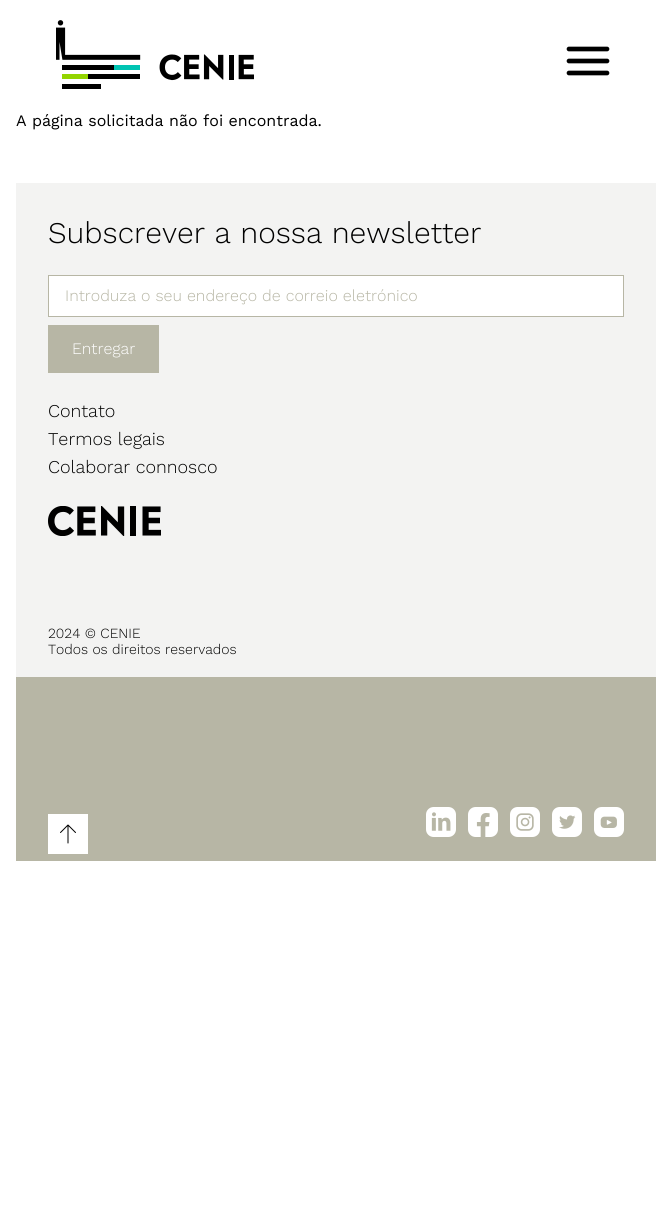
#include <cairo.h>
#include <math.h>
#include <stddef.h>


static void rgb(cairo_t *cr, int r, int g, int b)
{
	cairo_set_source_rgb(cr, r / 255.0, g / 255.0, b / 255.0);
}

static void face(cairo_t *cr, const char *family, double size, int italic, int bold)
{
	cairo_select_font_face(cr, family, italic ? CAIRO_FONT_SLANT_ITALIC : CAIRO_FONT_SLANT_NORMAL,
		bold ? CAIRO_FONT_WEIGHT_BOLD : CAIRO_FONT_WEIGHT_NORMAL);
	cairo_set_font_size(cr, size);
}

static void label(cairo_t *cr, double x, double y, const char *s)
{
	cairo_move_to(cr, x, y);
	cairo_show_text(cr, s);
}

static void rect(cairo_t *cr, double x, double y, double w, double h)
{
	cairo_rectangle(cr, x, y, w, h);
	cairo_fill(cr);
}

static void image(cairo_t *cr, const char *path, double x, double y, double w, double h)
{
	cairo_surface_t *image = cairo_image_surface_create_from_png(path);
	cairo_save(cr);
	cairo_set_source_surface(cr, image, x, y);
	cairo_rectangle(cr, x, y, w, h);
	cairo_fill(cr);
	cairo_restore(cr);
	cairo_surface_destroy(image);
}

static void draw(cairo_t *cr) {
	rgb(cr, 255, 255, 255);
	cairo_paint(cr);
	image(cr, "image0.png", 56, 20, 198, 69);
	cairo_new_path(cr);
	cairo_move_to(cr, 569, 49);
	cairo_line_to(cr, 607, 49);
	cairo_move_to(cr, 569, 61);
	cairo_line_to(cr, 607, 61);
	cairo_move_to(cr, 569, 73);
	cairo_line_to(cr, 607, 73);
	rgb(cr, 0, 0, 0);
	cairo_set_line_width(cr, 4.7);
	cairo_set_line_cap(cr, CAIRO_LINE_CAP_ROUND);
	cairo_set_line_join(cr, CAIRO_LINE_JOIN_ROUND);
	cairo_stroke(cr);
	face(cr, "Work Sans", 16, 0, 0);
	label(cr, 16, 126, "A página solicitada não foi encontrada.");
	rgb(cr, 243, 243, 242);
	rect(cr, 16, 183, 640, 494);
	face(cr, "Work Sans Light", 30, 0, 0);
	rgb(cr, 0, 0, 0);
	label(cr, 48, 243, "Subscrever a nossa newsletter");
	rgb(cr, 255, 255, 255);
	cairo_rectangle(cr, 48.5, 275.5, 575, 41);
	cairo_fill_preserve(cr);
	rgb(cr, 183, 182, 165);
	cairo_set_line_width(cr, 1);
	cairo_set_line_cap(cr, CAIRO_LINE_CAP_BUTT);
	cairo_set_line_join(cr, CAIRO_LINE_JOIN_MITER);
	cairo_stroke(cr);
	face(cr, "Work Sans Light", 16, 0, 0);
	label(cr, 65, 301, "Introduza o seu endereço de correio eletrónico");
	rect(cr, 48, 325, 111, 48);
	rgb(cr, 255, 255, 255);
	label(cr, 72, 354, "Entregar");
	face(cr, "Work Sans Light", 18, 0, 0);
	rgb(cr, 0, 0, 0);
	label(cr, 48, 417, "Contato");
	label(cr, 48, 445, "Termos legais");
	label(cr, 48, 473, "Colaborar connosco");
	image(cr, "image1.png", 48, 506, 113, 30);
	face(cr, "Work Sans Light", 14, 0, 0);
	label(cr, 48, 638, "2024 © CENIE");
	label(cr, 48, 654, "Todos os direitos reservados");
	rgb(cr, 183, 182, 165);
	rect(cr, 16, 677, 640, 184);
	rgb(cr, 255, 255, 255);
	rect(cr, 48, 814, 40, 40);
	cairo_new_path(cr);
	cairo_move_to(cr, 60.5, 832.5);
	cairo_line_to(cr, 68, 825);
	cairo_move_to(cr, 68, 825);
	cairo_line_to(cr, 75.5, 832.5);
	cairo_move_to(cr, 68, 825);
	cairo_line_to(cr, 68, 843);
	rgb(cr, 0, 0, 0);
	cairo_set_line_cap(cr, CAIRO_LINE_CAP_ROUND);
	cairo_set_line_join(cr, CAIRO_LINE_JOIN_ROUND);
	cairo_stroke(cr);
	image(cr, "image2.png", 426, 807, 30, 30);
	image(cr, "image3.png", 468, 807, 30, 30);
	image(cr, "image4.png", 510, 807, 30, 30);
	image(cr, "image5.png", 552, 807, 30, 30);
	image(cr, "image6.png", 594, 807, 30, 30);
}

int main(void) {
	cairo_surface_t *surface = cairo_image_surface_create(CAIRO_FORMAT_RGB24, 671, 1218);
	cairo_t *cr = cairo_create(surface);
	cairo_font_options_t *options = cairo_font_options_create();
	cairo_font_options_set_hint_metrics(options, CAIRO_HINT_METRICS_OFF);
	cairo_font_options_set_hint_style(options, CAIRO_HINT_STYLE_NONE);
	cairo_set_font_options(cr, options);
	cairo_set_miter_limit(cr, 4);
	draw(cr);
	cairo_surface_write_to_png(surface, "render.png");
	cairo_font_options_destroy(options);
	cairo_destroy(cr);
	cairo_surface_destroy(surface);
	return 0;
}
